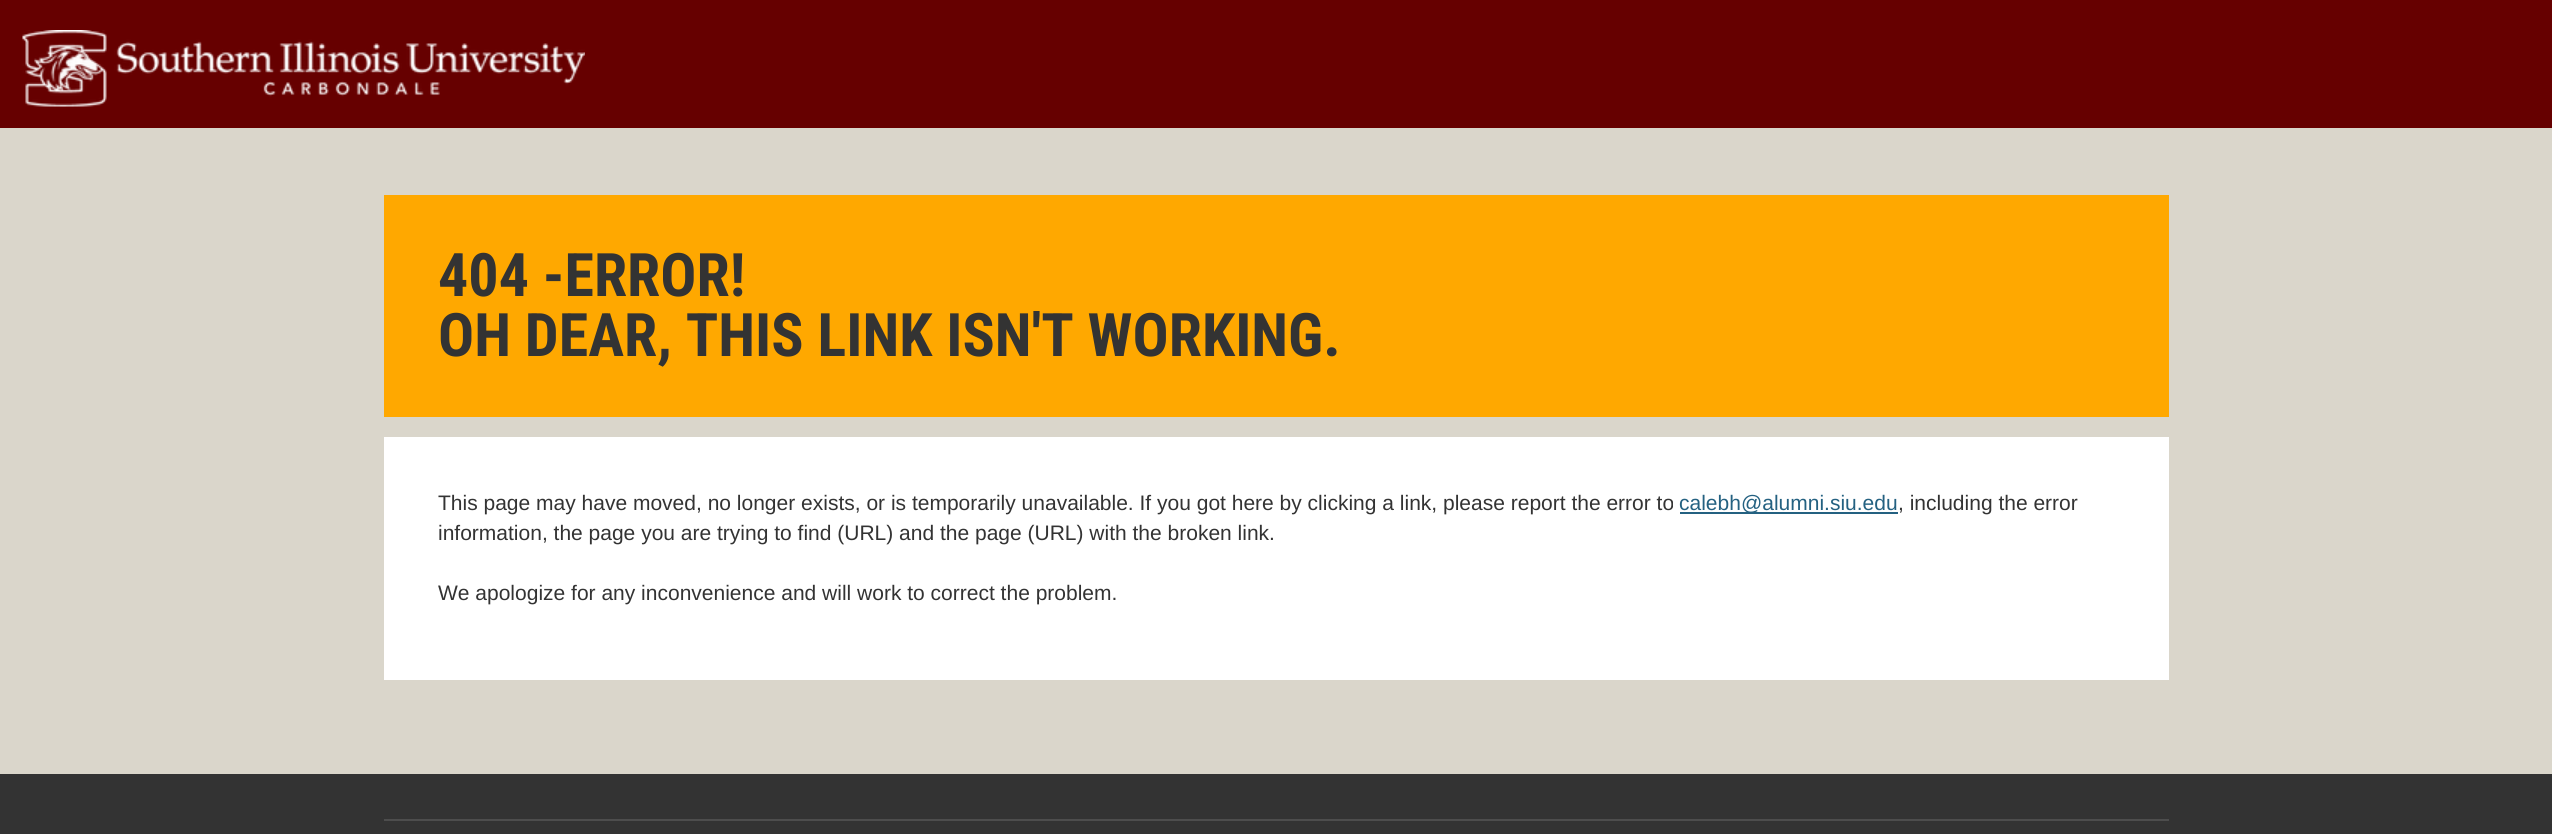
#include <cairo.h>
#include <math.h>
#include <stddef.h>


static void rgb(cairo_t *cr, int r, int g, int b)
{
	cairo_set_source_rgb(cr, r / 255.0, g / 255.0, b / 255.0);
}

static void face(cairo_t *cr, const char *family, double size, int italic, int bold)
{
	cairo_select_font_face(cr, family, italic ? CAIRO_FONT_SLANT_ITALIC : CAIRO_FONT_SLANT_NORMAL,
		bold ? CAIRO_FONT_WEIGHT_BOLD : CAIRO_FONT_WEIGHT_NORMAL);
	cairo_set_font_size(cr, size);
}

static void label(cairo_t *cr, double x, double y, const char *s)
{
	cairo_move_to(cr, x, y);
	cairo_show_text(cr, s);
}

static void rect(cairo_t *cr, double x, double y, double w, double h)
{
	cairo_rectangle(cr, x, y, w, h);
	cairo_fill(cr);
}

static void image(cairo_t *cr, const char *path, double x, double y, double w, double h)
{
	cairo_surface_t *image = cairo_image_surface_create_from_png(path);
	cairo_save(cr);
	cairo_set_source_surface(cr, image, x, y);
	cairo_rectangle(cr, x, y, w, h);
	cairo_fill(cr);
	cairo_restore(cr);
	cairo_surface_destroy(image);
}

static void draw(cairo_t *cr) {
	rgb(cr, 218, 214, 203);
	cairo_paint(cr);
	rgb(cr, 102, 0, 0);
	rect(cr, 0, 0, 2552, 128);
	image(cr, "image0.png", 22, 30, 563, 77);
	rgb(cr, 255, 168, 0);
	rect(cr, 384, 195, 1785, 222);
	face(cr, "Roboto Condensed", 60, 0, 1);
	rgb(cr, 51, 51, 51);
	label(cr, 438, 296, "404 -ERROR!");
	label(cr, 438, 356, "OH DEAR, THIS LINK ISN'T WORKING.");
	rgb(cr, 255, 255, 255);
	rect(cr, 384, 437, 1785, 243);
	face(cr, "Liberation Sans", 21, 0, 0);
	rgb(cr, 51, 51, 51);
	label(cr, 438, 510, "This page may have moved, no longer exists, or is temporarily unavailable. If you got here by clicking a link, please report the error to");
	rgb(cr, 36, 97, 129);
	rect(cr, 1680, 512, 218, 2);
	label(cr, 1679, 510, "calebh@alumni.siu.edu");
	rgb(cr, 51, 51, 51);
	label(cr, 1898, 510, ", including the error");
	label(cr, 438, 540, "information, the page you are trying to find (URL) and the page (URL) with the broken link.");
	label(cr, 438, 600, "We apologize for any inconvenience and will work to correct the problem.");
	rect(cr, 0, 774, 2552, 60);
	rgb(cr, 77, 77, 77);
	rect(cr, 384, 819, 1785, 2);
}

int main(void) {
	cairo_surface_t *surface = cairo_image_surface_create(CAIRO_FORMAT_RGB24, 2552, 834);
	cairo_t *cr = cairo_create(surface);
	cairo_font_options_t *options = cairo_font_options_create();
	cairo_font_options_set_hint_metrics(options, CAIRO_HINT_METRICS_OFF);
	cairo_font_options_set_hint_style(options, CAIRO_HINT_STYLE_NONE);
	cairo_set_font_options(cr, options);
	cairo_set_miter_limit(cr, 4);
	draw(cr);
	cairo_surface_write_to_png(surface, "render.png");
	cairo_font_options_destroy(options);
	cairo_destroy(cr);
	cairo_surface_destroy(surface);
	return 0;
}
